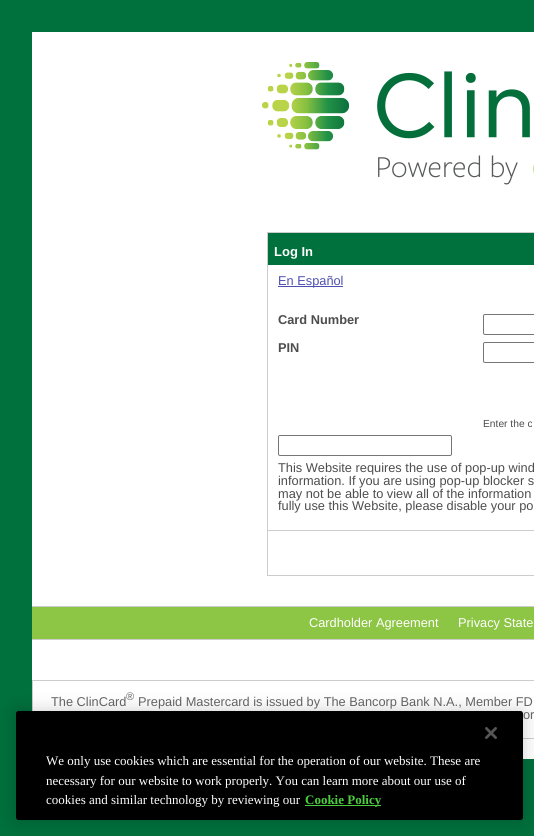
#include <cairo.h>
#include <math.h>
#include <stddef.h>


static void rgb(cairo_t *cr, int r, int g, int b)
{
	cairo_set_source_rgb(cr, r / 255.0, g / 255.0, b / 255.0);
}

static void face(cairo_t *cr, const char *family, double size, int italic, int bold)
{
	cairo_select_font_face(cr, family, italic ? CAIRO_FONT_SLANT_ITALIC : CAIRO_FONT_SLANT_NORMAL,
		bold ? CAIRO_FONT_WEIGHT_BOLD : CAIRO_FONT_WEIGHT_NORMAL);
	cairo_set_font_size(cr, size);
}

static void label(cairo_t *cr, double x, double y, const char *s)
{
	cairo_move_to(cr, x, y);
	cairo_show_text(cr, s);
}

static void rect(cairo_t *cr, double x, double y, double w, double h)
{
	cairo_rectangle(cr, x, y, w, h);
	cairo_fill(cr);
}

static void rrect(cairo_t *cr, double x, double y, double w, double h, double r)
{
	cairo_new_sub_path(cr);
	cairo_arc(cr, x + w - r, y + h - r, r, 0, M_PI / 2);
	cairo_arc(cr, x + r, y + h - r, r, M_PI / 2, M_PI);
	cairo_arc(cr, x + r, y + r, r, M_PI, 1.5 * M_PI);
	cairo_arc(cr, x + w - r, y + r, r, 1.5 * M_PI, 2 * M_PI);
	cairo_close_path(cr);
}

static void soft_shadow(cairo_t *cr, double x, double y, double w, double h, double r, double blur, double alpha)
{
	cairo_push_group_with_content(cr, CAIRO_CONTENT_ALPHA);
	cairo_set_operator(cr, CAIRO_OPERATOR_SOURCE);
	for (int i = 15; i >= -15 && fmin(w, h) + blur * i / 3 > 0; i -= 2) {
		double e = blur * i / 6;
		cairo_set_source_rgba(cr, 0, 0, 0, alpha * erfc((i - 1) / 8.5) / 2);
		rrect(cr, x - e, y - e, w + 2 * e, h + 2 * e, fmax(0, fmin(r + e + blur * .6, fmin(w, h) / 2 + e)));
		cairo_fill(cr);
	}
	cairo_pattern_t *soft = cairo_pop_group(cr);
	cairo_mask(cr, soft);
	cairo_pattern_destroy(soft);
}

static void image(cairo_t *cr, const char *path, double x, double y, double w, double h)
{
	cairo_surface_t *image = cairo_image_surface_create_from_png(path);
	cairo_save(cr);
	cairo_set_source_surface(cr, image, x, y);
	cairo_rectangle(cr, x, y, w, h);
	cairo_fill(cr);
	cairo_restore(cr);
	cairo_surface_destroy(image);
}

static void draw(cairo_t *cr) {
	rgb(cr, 0, 112, 60);
	cairo_paint(cr);
	rgb(cr, 255, 255, 255);
	rect(cr, 32, 32, 502, 727);
	image(cr, "image0.png", 262, 62, 272, 123);
	cairo_rectangle(cr, 267.5, 232.5, 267, 343);
	rgb(cr, 204, 204, 204);
	cairo_set_line_width(cr, 1);
	cairo_stroke(cr);
	rgb(cr, 0, 112, 60);
	rect(cr, 268, 233, 266, 32);
	face(cr, "Liberation Sans", 13, 0, 1);
	rgb(cr, 255, 255, 255);
	label(cr, 274, 256, "Log In");
	rgb(cr, 78, 80, 177);
	rect(cr, 278, 286, 65, 1);
	face(cr, "Liberation Sans", 12.8, 0, 0);
	label(cr, 278, 285, "En Español");
	face(cr, "Liberation Sans", 12.8, 0, 1);
	rgb(cr, 77, 77, 77);
	label(cr, 278, 324, "Card Number");
	rrect(cr, 483.5, 314.5, 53, 20, 1.5);
	rgb(cr, 118, 118, 118);
	cairo_stroke(cr);
	rgb(cr, 77, 77, 77);
	label(cr, 278, 352, "PIN");
	rrect(cr, 483.5, 342.5, 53, 20, 1.5);
	rgb(cr, 118, 118, 118);
	cairo_stroke(cr);
	face(cr, "Liberation Sans", 10.25, 0, 0);
	rgb(cr, 77, 77, 77);
	label(cr, 483, 427, "Enter the c");
	rrect(cr, 278.5, 435.5, 173, 20, 1.5);
	rgb(cr, 118, 118, 118);
	cairo_stroke(cr);
	face(cr, "Liberation Sans", 12.8, 0, 0);
	rgb(cr, 77, 77, 77);
	label(cr, 278, 472, "This Website requires the use of pop-up wind");
	label(cr, 278, 485, "information. If you are using pop-up blocker s");
	label(cr, 278, 498, "may not be able to view all of the information");
	label(cr, 278, 510, "fully use this Website, please disable your po");
	rgb(cr, 204, 204, 204);
	rect(cr, 268, 530, 266, 1);
	rgb(cr, 141, 197, 69);
	rect(cr, 32, 607, 502, 32);
	rgb(cr, 204, 204, 204);
	rect(cr, 32, 606, 502, 1);
	rect(cr, 32, 639, 502, 1);
	rgb(cr, 255, 255, 255);
	label(cr, 309, 627, "Cardholder Agreement");
	label(cr, 458, 627, "Privacy State");
	cairo_rectangle(cr, 32.5, 680.5, 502, 58);
	rgb(cr, 204, 204, 204);
	cairo_stroke(cr);
	rgb(cr, 102, 102, 102);
	label(cr, 51, 706, "The ClinCard");
	face(cr, "Liberation Sans", 11, 0, 0);
	label(cr, 126, 700, "®");
	face(cr, "Liberation Sans", 12.8, 0, 0);
	label(cr, 138, 706, "Prepaid Mastercard is issued by The Bancorp Bank N.A., Member FD");
	label(cr, 523, 719, "or");
	rgb(cr, 0, 0, 0);
	soft_shadow(cr, 16, 711, 507, 109, 2.5, 9, 0.2);
	rgb(cr, 0, 0, 0);
	rrect(cr, 16, 711, 507, 109, 2.5);
	cairo_fill(cr);
	image(cr, "image1.png", 485, 727, 12, 12);
	face(cr, "Liberation Serif", 13, 0, 0);
	rgb(cr, 255, 255, 255);
	label(cr, 46, 765, "We only use cookies which are essential for the operation of our website. These are");
	label(cr, 46, 785, "necessary for our website to work properly. You can learn more about our use of");
	label(cr, 46, 804, "cookies and similar technology by reviewing our");
	rgb(cr, 75, 205, 62);
	rect(cr, 305, 805, 76, 1);
	face(cr, "Liberation Serif", 13, 0, 1);
	label(cr, 305, 804, "Cookie Policy");
}

int main(void) {
	cairo_surface_t *surface = cairo_image_surface_create(CAIRO_FORMAT_RGB24, 534, 836);
	cairo_t *cr = cairo_create(surface);
	cairo_font_options_t *options = cairo_font_options_create();
	cairo_font_options_set_hint_metrics(options, CAIRO_HINT_METRICS_OFF);
	cairo_font_options_set_hint_style(options, CAIRO_HINT_STYLE_NONE);
	cairo_set_font_options(cr, options);
	cairo_set_miter_limit(cr, 4);
	draw(cr);
	cairo_surface_write_to_png(surface, "render.png");
	cairo_font_options_destroy(options);
	cairo_destroy(cr);
	cairo_surface_destroy(surface);
	return 0;
}
